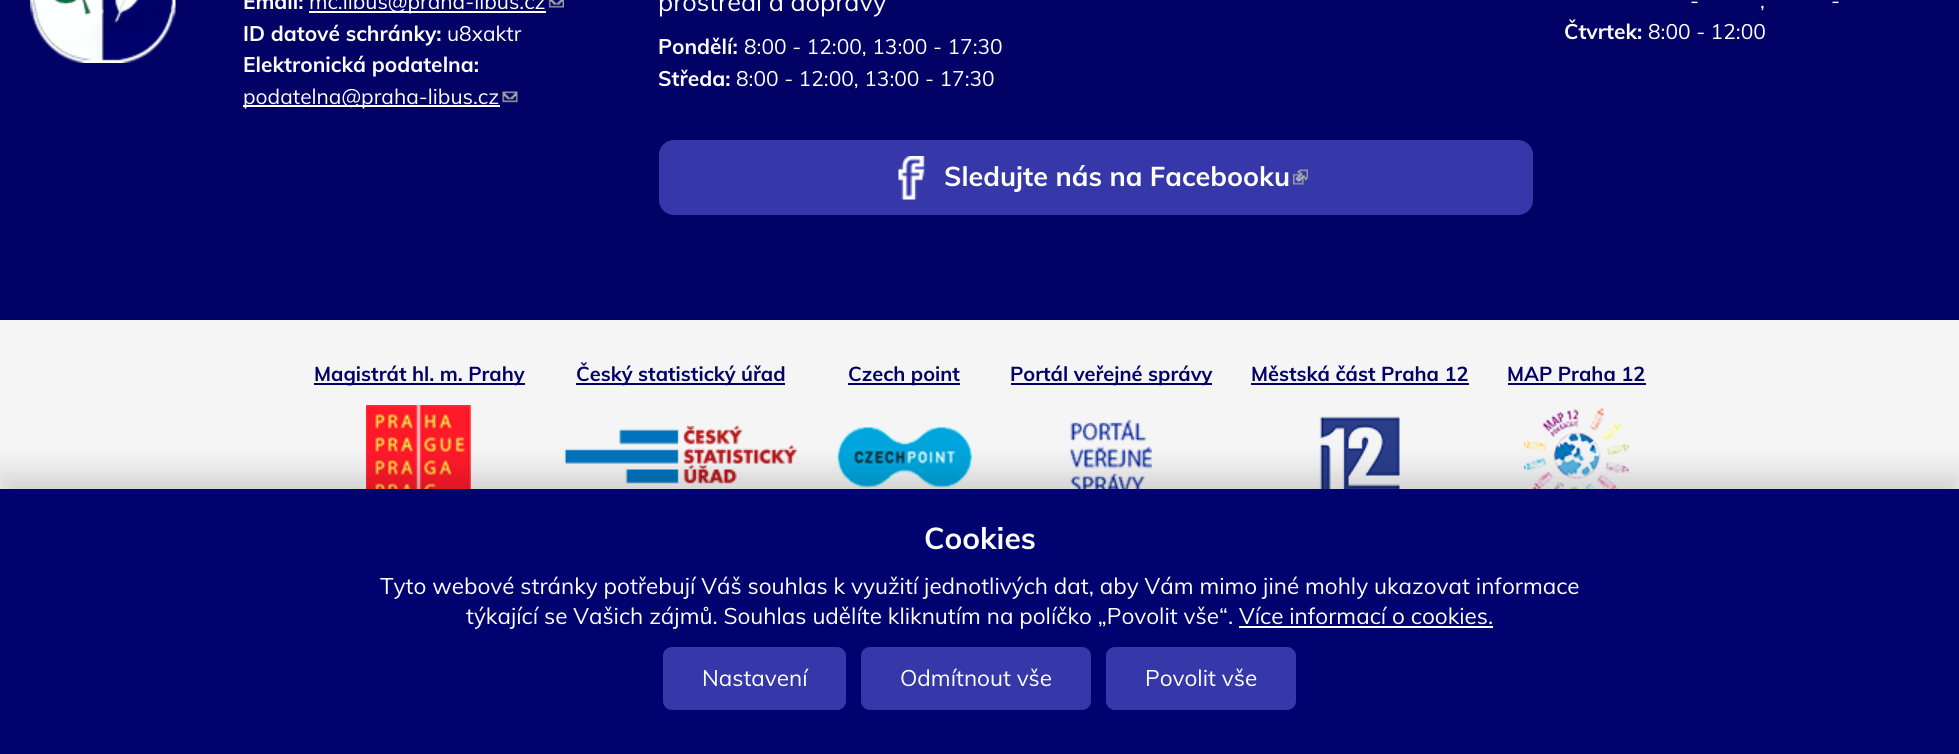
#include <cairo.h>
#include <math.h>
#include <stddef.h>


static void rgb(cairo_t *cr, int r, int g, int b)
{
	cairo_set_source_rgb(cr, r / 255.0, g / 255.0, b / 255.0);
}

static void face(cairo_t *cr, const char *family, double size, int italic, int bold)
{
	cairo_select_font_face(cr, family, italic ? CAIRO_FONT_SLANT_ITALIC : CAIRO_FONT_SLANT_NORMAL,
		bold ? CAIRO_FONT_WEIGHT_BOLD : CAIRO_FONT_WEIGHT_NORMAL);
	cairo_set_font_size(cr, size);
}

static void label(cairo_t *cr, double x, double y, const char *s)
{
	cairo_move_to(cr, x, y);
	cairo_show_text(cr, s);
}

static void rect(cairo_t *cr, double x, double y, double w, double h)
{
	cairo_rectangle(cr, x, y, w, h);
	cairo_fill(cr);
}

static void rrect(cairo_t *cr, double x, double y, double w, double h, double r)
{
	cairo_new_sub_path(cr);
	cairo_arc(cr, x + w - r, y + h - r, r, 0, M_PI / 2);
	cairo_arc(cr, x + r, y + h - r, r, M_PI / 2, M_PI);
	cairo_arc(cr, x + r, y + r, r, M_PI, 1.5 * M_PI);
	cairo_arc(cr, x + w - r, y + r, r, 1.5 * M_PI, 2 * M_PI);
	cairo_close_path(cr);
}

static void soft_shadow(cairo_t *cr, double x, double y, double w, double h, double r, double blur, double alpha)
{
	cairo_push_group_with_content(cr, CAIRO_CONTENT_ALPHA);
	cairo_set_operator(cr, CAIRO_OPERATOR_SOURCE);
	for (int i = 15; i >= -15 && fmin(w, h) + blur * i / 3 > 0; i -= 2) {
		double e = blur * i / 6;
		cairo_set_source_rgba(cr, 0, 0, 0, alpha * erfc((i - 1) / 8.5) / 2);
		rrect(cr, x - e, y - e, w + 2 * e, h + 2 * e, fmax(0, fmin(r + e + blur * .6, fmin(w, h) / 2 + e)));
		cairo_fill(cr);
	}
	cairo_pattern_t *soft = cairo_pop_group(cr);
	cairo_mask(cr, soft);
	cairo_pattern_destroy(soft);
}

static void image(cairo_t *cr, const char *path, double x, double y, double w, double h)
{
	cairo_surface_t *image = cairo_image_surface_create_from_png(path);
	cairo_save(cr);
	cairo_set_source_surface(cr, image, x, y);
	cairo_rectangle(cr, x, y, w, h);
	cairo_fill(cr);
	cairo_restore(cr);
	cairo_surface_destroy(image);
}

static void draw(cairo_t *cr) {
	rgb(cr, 1, 1, 102);
	cairo_paint(cr);
	image(cr, "image0.png", 30, 0, 146, 63);
	face(cr, "Muli", 21, 0, 1);
	rgb(cr, 255, 255, 255);
	label(cr, 243, 9, "Email:");
	rect(cr, 309, 11, 237, 2);
	face(cr, "Muli", 21, 0, 0);
	label(cr, 309, 9, "mc.libus@praha-libus.cz");
	image(cr, "image1.png", 548, 0, 16, 8);
	face(cr, "Muli", 21, 0, 1);
	label(cr, 243, 41, "ID datové schránky:");
	face(cr, "Muli", 21, 0, 0);
	label(cr, 447, 41, "u8xaktr");
	face(cr, "Muli", 21, 0, 1);
	label(cr, 243, 72, "Elektronická podatelna:");
	rect(cr, 243, 105, 257, 2);
	face(cr, "Muli", 21, 0, 0);
	label(cr, 243, 104, "podatelna@praha-libus.cz");
	image(cr, "image2.png", 502, 91, 16, 12);
	face(cr, "Muli", 25.25, 0, 0);
	label(cr, 658, 11, "prostředí a dopravy");
	face(cr, "Muli", 21, 0, 1);
	label(cr, 658, 54, "Pondělí:");
	face(cr, "Muli", 21, 0, 0);
	label(cr, 744, 54, "8:00 - 12:00, 13:00 - 17:30");
	face(cr, "Muli", 21, 0, 1);
	label(cr, 658, 86, "Středa:");
	face(cr, "Muli", 21, 0, 0);
	label(cr, 736, 86, "8:00 - 12:00, 13:00 - 17:30");
	rgb(cr, 54, 56, 169);
	rrect(cr, 659, 140, 874, 75, 15);
	cairo_fill(cr);
	image(cr, "image3.png", 898, 156, 27, 44);
	face(cr, "Muli", 27, 0, 1);
	rgb(cr, 255, 255, 255);
	label(cr, 944, 186, "Sledujte nás na Facebooku");
	image(cr, "image4.png", 1293, 169, 15, 16);
	face(cr, "Muli", 21, 0, 0);
	label(cr, 1690, 8, "-");
	label(cr, 1831, 8, "-");
	label(cr, 1760, 8, ",");
	face(cr, "Muli", 21, 0, 1);
	label(cr, 1564, 39, "Čtvrtek:");
	face(cr, "Muli", 21, 0, 0);
	label(cr, 1648, 39, "8:00 - 12:00");
	rgb(cr, 245, 245, 245);
	rect(cr, 0, 320, 1959, 169);
	rgb(cr, 1, 1, 102);
	rect(cr, 314, 383, 211, 2);
	face(cr, "Muli", 20, 0, 1);
	label(cr, 314, 381, "Magistrát hl. m. Prahy");
	image(cr, "image5.png", 366, 405, 105, 84);
	rect(cr, 576, 383, 209, 2);
	label(cr, 576, 381, "Český statistický úřad");
	image(cr, "image6.png", 564, 425, 233, 59);
	rect(cr, 848, 383, 112, 2);
	label(cr, 848, 381, "Czech point");
	image(cr, "image7.png", 837, 427, 135, 61);
	rect(cr, 1011, 383, 201, 2);
	label(cr, 1010, 381, "Portál veřejné správy");
	image(cr, "image8.png", 1069, 419, 83, 70);
	label(cr, 1251, 381, "Městská část Praha 12");
	rect(cr, 1251, 383, 218, 2);
	image(cr, "image9.png", 1319, 416, 81, 73);
	label(cr, 1507, 381, "MAP Praha 12");
	rect(cr, 1508, 383, 138, 2);
	image(cr, "image10.png", 1524, 407, 105, 82);
	rgb(cr, 0, 0, 0);
	soft_shadow(cr, 0, 474, 1959, 266, 0, 15, 0.15);
	rgb(cr, 0, 2, 111);
	rect(cr, 0, 489, 1959, 265);
	face(cr, "Muli", 30, 0, 1);
	rgb(cr, 255, 255, 255);
	label(cr, 924, 549, "Cookies");
	face(cr, "Muli", 22.5, 0, 0);
	label(cr, 380, 594, "Tyto webové stránky potřebují Váš souhlas k využití jednotlivých dat, aby Vám mimo jiné mohly ukazovat informace");
	label(cr, 466, 624, "týkající se Vašich zájmů. Souhlas udělíte kliknutím na políčko „Povolit vše“. Více informací o cookies.");
	rect(cr, 1239, 626, 254, 2);
	rgb(cr, 54, 56, 169);
	rrect(cr, 664, 648, 181, 61, 8);
	cairo_fill_preserve(cr);
	cairo_stroke(cr);
	rgb(cr, 255, 255, 255);
	label(cr, 702, 686, "Nastavení");
	rgb(cr, 54, 56, 169);
	rrect(cr, 862, 648, 228, 61, 8);
	cairo_fill_preserve(cr);
	cairo_stroke(cr);
	rgb(cr, 255, 255, 255);
	label(cr, 900, 686, "Odmítnout vše");
	rgb(cr, 54, 56, 169);
	rrect(cr, 1107, 648, 188, 61, 8);
	cairo_fill_preserve(cr);
	cairo_stroke(cr);
	rgb(cr, 255, 255, 255);
	label(cr, 1145, 686, "Povolit vše");
}

int main(void) {
	cairo_surface_t *surface = cairo_image_surface_create(CAIRO_FORMAT_RGB24, 1959, 754);
	cairo_t *cr = cairo_create(surface);
	cairo_font_options_t *options = cairo_font_options_create();
	cairo_font_options_set_hint_metrics(options, CAIRO_HINT_METRICS_OFF);
	cairo_font_options_set_hint_style(options, CAIRO_HINT_STYLE_NONE);
	cairo_set_font_options(cr, options);
	cairo_set_miter_limit(cr, 4);
	draw(cr);
	cairo_surface_write_to_png(surface, "render.png");
	cairo_font_options_destroy(options);
	cairo_destroy(cr);
	cairo_surface_destroy(surface);
	return 0;
}
